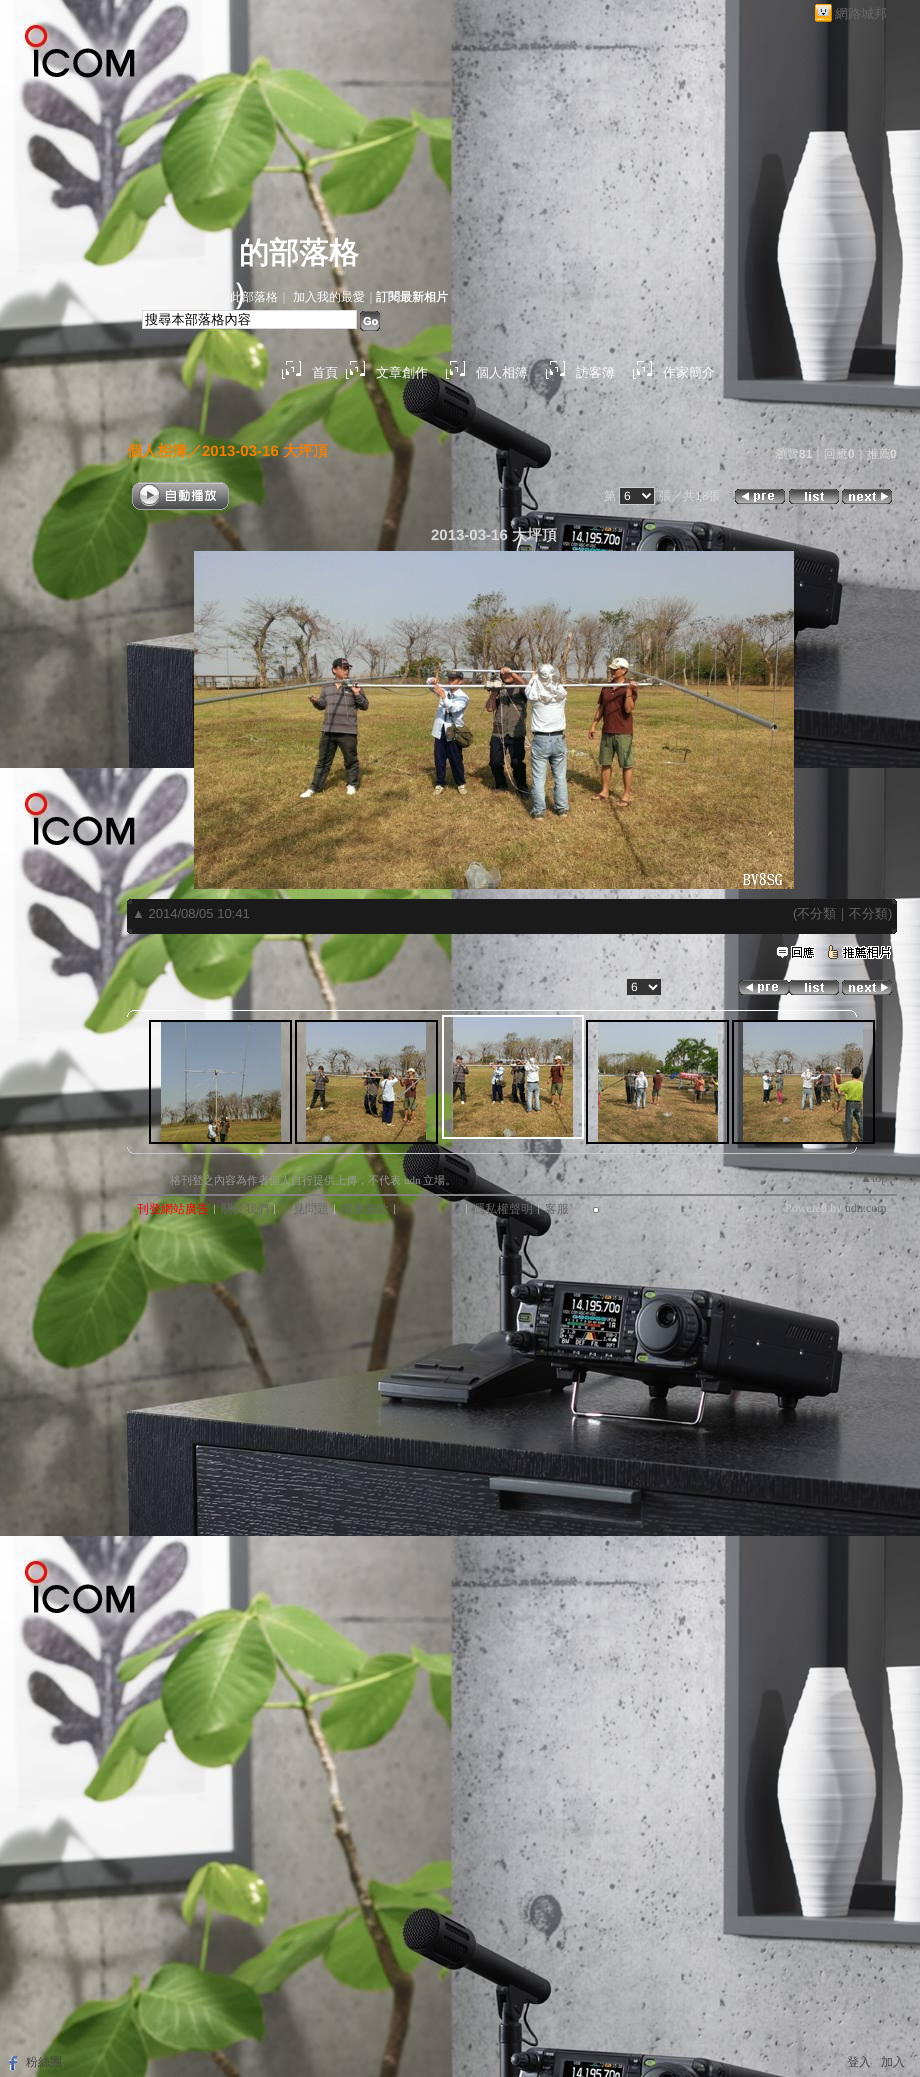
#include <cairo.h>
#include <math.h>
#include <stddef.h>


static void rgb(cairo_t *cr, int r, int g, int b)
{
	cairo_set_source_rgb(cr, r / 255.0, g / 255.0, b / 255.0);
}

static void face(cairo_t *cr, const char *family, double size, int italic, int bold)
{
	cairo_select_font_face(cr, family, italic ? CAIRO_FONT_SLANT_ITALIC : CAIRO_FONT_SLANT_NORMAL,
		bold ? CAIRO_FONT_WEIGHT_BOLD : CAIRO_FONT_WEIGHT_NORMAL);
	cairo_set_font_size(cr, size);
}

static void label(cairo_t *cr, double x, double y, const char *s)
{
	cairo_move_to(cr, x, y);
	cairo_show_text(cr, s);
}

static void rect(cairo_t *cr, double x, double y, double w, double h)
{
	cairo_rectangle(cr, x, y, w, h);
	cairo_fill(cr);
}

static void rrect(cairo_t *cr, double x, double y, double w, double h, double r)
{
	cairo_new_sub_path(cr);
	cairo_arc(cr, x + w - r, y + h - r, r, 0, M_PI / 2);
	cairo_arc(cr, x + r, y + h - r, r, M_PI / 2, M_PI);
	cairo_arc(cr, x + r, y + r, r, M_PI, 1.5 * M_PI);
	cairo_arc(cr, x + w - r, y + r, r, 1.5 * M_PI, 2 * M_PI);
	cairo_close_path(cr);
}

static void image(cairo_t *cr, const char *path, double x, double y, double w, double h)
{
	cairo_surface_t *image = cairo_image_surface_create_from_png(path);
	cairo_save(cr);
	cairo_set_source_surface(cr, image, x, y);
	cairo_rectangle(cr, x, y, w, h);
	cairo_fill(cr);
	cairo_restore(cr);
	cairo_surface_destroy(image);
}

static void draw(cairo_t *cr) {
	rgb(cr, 255, 255, 255);
	cairo_paint(cr);
	image(cr, "image0.png", 0, 0, 920, 2077);
	image(cr, "image1.png", 815, 4, 17, 18);
	face(cr, "WenQuanYi Zen Hei Medium", 13, 0, 0);
	rgb(cr, 102, 102, 102);
	label(cr, 835, 18, "網路城邦");
	face(cr, "WenQuanYi Zen Hei", 30, 0, 1);
	rgb(cr, 255, 255, 255);
	label(cr, 239, 263, "的部落格");
	label(cr, 232, 304, "）");
	face(cr, "WenQuanYi Zen Hei Medium", 12, 0, 0);
	label(cr, 230, 301, "此部落格");
	rgb(cr, 218, 218, 218);
	label(cr, 278, 301, "｜");
	rgb(cr, 255, 255, 255);
	label(cr, 293, 301, "加入我的最愛");
	rgb(cr, 218, 218, 218);
	label(cr, 365, 301, "｜");
	face(cr, "WenQuanYi Zen Hei", 12, 0, 1);
	rgb(cr, 255, 255, 255);
	label(cr, 376, 301, "訂閱最新相片");
	cairo_rectangle(cr, 142.5, 310.5, 214, 18);
	cairo_fill_preserve(cr);
	rgb(cr, 218, 218, 218);
	cairo_set_line_width(cr, 1);
	cairo_stroke(cr);
	face(cr, "WenQuanYi Zen Hei Medium", 13.25, 0, 0);
	rgb(cr, 0, 0, 0);
	label(cr, 145, 324, "搜尋本部落格內容");
	image(cr, "image2.png", 360, 311, 20, 20);
	image(cr, "image3.png", 282, 361, 19, 18);
	face(cr, "WenQuanYi Zen Hei Medium", 13, 0, 0);
	rgb(cr, 255, 255, 255);
	label(cr, 312, 377, "首頁");
	image(cr, "image4.png", 346, 361, 19, 18);
	label(cr, 376, 377, "文章創作");
	image(cr, "image5.png", 446, 361, 19, 18);
	label(cr, 476, 377, "個人相簿");
	image(cr, "image6.png", 546, 361, 19, 18);
	label(cr, 576, 377, "訪客簿");
	image(cr, "image7.png", 633, 361, 19, 18);
	label(cr, 663, 377, "作家簡介");
	face(cr, "WenQuanYi Zen Hei", 15, 0, 1);
	rgb(cr, 244, 126, 0);
	label(cr, 127, 456, "個人相簿／");
	face(cr, "Liberation Sans", 15, 0, 1);
	label(cr, 202, 456, "2013-03-16");
	face(cr, "WenQuanYi Zen Hei", 15, 0, 1);
	label(cr, 283, 456, "大坪頂");
	face(cr, "WenQuanYi Zen Hei Medium", 12, 0, 0);
	rgb(cr, 218, 218, 218);
	label(cr, 775, 458, "瀏覽");
	face(cr, "Liberation Sans", 12, 0, 1);
	label(cr, 799, 458, "81");
	face(cr, "WenQuanYi Zen Hei Medium", 12, 0, 0);
	label(cr, 812, 458, "｜回應");
	face(cr, "Liberation Sans", 12, 0, 1);
	label(cr, 848, 458, "0");
	face(cr, "WenQuanYi Zen Hei Medium", 12, 0, 0);
	label(cr, 855, 458, "｜推薦");
	face(cr, "Liberation Sans", 12, 0, 1);
	label(cr, 890, 458, "0");
	image(cr, "image8.png", 132, 482, 97, 28);
	face(cr, "WenQuanYi Zen Hei Medium", 12, 0, 0);
	label(cr, 604, 500, "第");
	rgb(cr, 51, 51, 51);
	cairo_rectangle(cr, 619.5, 487.5, 35, 17);
	cairo_fill_preserve(cr);
	rgb(cr, 204, 204, 204);
	cairo_stroke(cr);
	cairo_new_path(cr);
	cairo_move_to(cr, 642.5, 493.5);
	cairo_line_to(cr, 646.5, 497.5);
	cairo_line_to(cr, 650.5, 493.5);
	rgb(cr, 255, 255, 255);
	cairo_set_line_width(cr, 2);
	cairo_stroke(cr);
	face(cr, "Liberation Sans", 12, 0, 0);
	label(cr, 624, 500, "6");
	face(cr, "WenQuanYi Zen Hei Medium", 12, 0, 0);
	rgb(cr, 218, 218, 218);
	label(cr, 659, 500, "張／共");
	face(cr, "Liberation Sans", 12, 0, 0);
	label(cr, 695, 500, "18");
	face(cr, "WenQuanYi Zen Hei Medium", 12, 0, 0);
	label(cr, 708, 500, "張");
	image(cr, "image9.png", 735, 489, 50, 15);
	image(cr, "image10.png", 789, 489, 50, 15);
	image(cr, "image11.png", 842, 489, 50, 15);
	face(cr, "Liberation Sans", 15, 0, 1);
	label(cr, 431, 540, "2013-03-16");
	face(cr, "WenQuanYi Zen Hei", 15, 0, 1);
	label(cr, 512, 540, "大坪頂");
	image(cr, "image12.png", 194, 551, 600, 338);
	image(cr, "image13.png", 127, 899, 5, 5);
	rgb(cr, 26, 26, 26);
	rect(cr, 132, 899, 760, 5);
	image(cr, "image14.png", 892, 899, 5, 5);
	rect(cr, 127, 904, 770, 25);
	face(cr, "Liberation Sans", 13, 0, 0);
	rgb(cr, 102, 102, 102);
	label(cr, 132, 918, "▲ 2014/08/05 10:41");
	label(cr, 793, 918, "(");
	face(cr, "WenQuanYi Zen Hei Medium", 13, 0, 0);
	label(cr, 797, 918, "不分類｜不分類");
	face(cr, "Liberation Sans", 13, 0, 0);
	label(cr, 888, 918, ")");
	image(cr, "image15.png", 127, 929, 5, 5);
	rgb(cr, 26, 26, 26);
	rect(cr, 132, 929, 760, 5);
	image(cr, "image16.png", 892, 929, 5, 5);
	image(cr, "image17.png", 776, 946, 39, 13);
	image(cr, "image18.png", 828, 945, 63, 14);
	rgb(cr, 51, 51, 51);
	cairo_rectangle(cr, 626.5, 978.5, 35, 17);
	cairo_fill_preserve(cr);
	rgb(cr, 204, 204, 204);
	cairo_set_line_width(cr, 1);
	cairo_stroke(cr);
	cairo_new_path(cr);
	cairo_move_to(cr, 649, 985);
	cairo_line_to(cr, 653, 989);
	cairo_line_to(cr, 657, 985);
	rgb(cr, 255, 255, 255);
	cairo_set_line_width(cr, 2);
	cairo_stroke(cr);
	face(cr, "Liberation Sans", 12, 0, 0);
	label(cr, 631, 991, "6");
	image(cr, "image19.png", 739, 980, 50, 15);
	image(cr, "image20.png", 789, 980, 50, 15);
	image(cr, "image21.png", 842, 980, 50, 15);
	image(cr, "image22.png", 127, 1010, 730, 7);
	cairo_rectangle(cr, 150, 1021, 141, 122);
	rgb(cr, 0, 0, 0);
	cairo_stroke(cr);
	image(cr, "image23.png", 161, 1022, 120, 120);
	cairo_rectangle(cr, 296, 1021, 141, 122);
	cairo_stroke(cr);
	image(cr, "image24.png", 306, 1022, 120, 120);
	cairo_rectangle(cr, 443, 1016, 140, 122);
	rgb(cr, 255, 255, 255);
	cairo_stroke(cr);
	image(cr, "image25.png", 453, 1017, 120, 120);
	cairo_rectangle(cr, 587, 1021, 141, 122);
	rgb(cr, 0, 0, 0);
	cairo_stroke(cr);
	image(cr, "image26.png", 598, 1022, 120, 120);
	cairo_rectangle(cr, 733, 1021, 141, 122);
	cairo_stroke(cr);
	image(cr, "image27.png", 743, 1022, 120, 120);
	image(cr, "image28.png", 127, 1147, 730, 7);
	rgb(cr, 128, 128, 128);
	rect(cr, 127, 1194, 770, 2);
	face(cr, "WenQuanYi Zen Hei Medium", 11, 0, 0);
	rgb(cr, 153, 153, 153);
	label(cr, 170, 1184, "格刊登之內容為作者個人自行提供上傳，不代表");
	face(cr, "Liberation Serif", 11, 0, 0);
	label(cr, 404, 1184, "udn");
	face(cr, "WenQuanYi Zen Hei Medium", 11, 0, 0);
	label(cr, 423, 1184, "立場。");
	face(cr, "Liberation Serif", 12, 0, 0);
	rgb(cr, 102, 102, 102);
	label(cr, 860, 1182, "▲top");
	face(cr, "WenQuanYi Zen Hei Medium", 12, 0, 0);
	rgb(cr, 255, 0, 0);
	label(cr, 137, 1213, "刊登網站廣告");
	rgb(cr, 218, 218, 218);
	label(cr, 209, 1213, "︱");
	rgb(cr, 102, 102, 102);
	label(cr, 221, 1213, "關於我們");
	rgb(cr, 218, 218, 218);
	label(cr, 269, 1213, "︱");
	rgb(cr, 102, 102, 102);
	label(cr, 293, 1213, "見問題");
	rgb(cr, 218, 218, 218);
	label(cr, 329, 1213, "︱");
	rgb(cr, 102, 102, 102);
	label(cr, 341, 1213, "服務條款");
	rgb(cr, 218, 218, 218);
	label(cr, 389, 1213, "︱");
	label(cr, 461, 1213, "︱");
	rgb(cr, 102, 102, 102);
	label(cr, 473, 1213, "隱私權聲明");
	rgb(cr, 218, 218, 218);
	label(cr, 533, 1213, "︱");
	rgb(cr, 102, 102, 102);
	label(cr, 545, 1213, "客服");
	rgb(cr, 255, 255, 255);
	rrect(cr, 593.5, 1207.5, 5, 5, 1.5);
	cairo_fill_preserve(cr);
	rgb(cr, 118, 118, 118);
	cairo_set_line_width(cr, 1);
	cairo_stroke(cr);
	face(cr, "Liberation Serif", 12, 0, 0);
	rgb(cr, 204, 204, 204);
	label(cr, 785, 1212, "Powered by");
	rgb(cr, 102, 102, 102);
	label(cr, 845, 1212, "udn.com");
	image(cr, "image29.png", 9, 2056, 8, 14);
	face(cr, "WenQuanYi Zen Hei Medium", 12, 0, 0);
	rgb(cr, 68, 68, 68);
	label(cr, 26, 2066, "粉絲團");
	label(cr, 847, 2066, "登入");
	label(cr, 881, 2066, "加入");
}

int main(void) {
	cairo_surface_t *surface = cairo_image_surface_create(CAIRO_FORMAT_RGB24, 920, 2077);
	cairo_t *cr = cairo_create(surface);
	cairo_font_options_t *options = cairo_font_options_create();
	cairo_font_options_set_hint_metrics(options, CAIRO_HINT_METRICS_OFF);
	cairo_font_options_set_hint_style(options, CAIRO_HINT_STYLE_NONE);
	cairo_set_font_options(cr, options);
	cairo_set_miter_limit(cr, 4);
	draw(cr);
	cairo_surface_write_to_png(surface, "render.png");
	cairo_font_options_destroy(options);
	cairo_destroy(cr);
	cairo_surface_destroy(surface);
	return 0;
}
